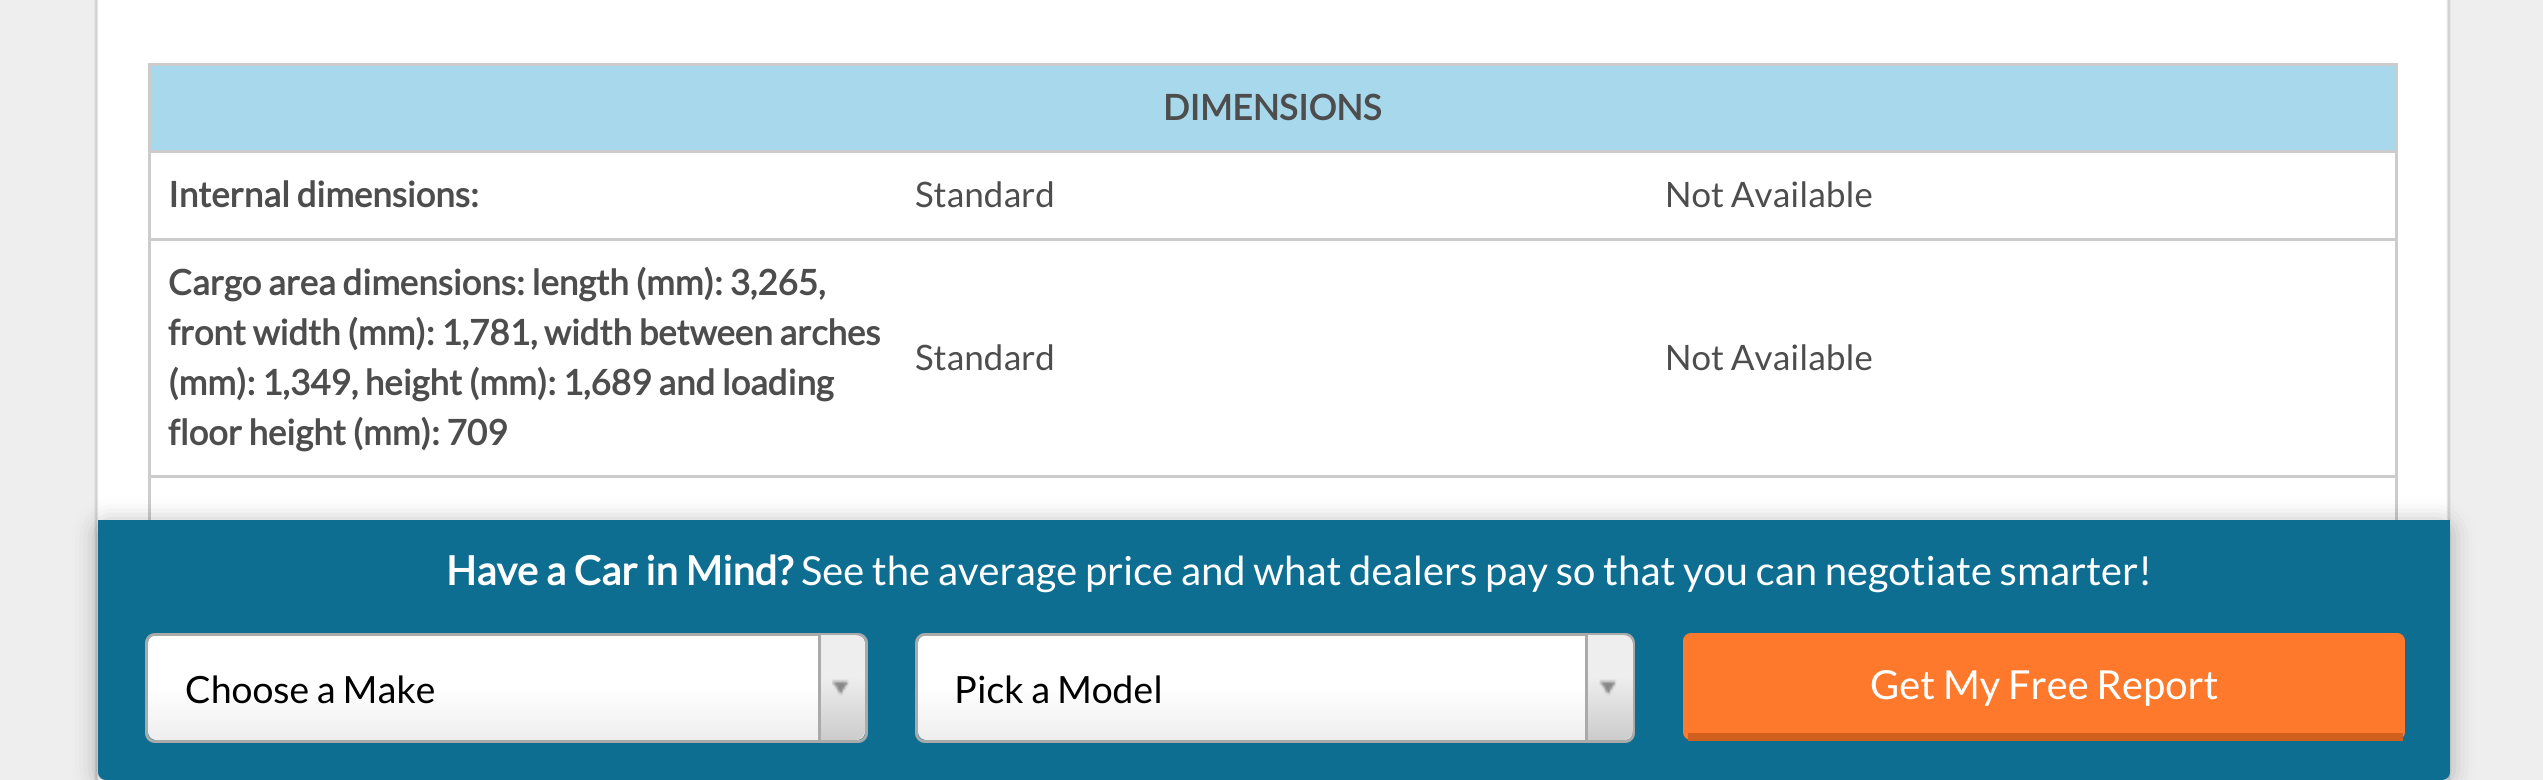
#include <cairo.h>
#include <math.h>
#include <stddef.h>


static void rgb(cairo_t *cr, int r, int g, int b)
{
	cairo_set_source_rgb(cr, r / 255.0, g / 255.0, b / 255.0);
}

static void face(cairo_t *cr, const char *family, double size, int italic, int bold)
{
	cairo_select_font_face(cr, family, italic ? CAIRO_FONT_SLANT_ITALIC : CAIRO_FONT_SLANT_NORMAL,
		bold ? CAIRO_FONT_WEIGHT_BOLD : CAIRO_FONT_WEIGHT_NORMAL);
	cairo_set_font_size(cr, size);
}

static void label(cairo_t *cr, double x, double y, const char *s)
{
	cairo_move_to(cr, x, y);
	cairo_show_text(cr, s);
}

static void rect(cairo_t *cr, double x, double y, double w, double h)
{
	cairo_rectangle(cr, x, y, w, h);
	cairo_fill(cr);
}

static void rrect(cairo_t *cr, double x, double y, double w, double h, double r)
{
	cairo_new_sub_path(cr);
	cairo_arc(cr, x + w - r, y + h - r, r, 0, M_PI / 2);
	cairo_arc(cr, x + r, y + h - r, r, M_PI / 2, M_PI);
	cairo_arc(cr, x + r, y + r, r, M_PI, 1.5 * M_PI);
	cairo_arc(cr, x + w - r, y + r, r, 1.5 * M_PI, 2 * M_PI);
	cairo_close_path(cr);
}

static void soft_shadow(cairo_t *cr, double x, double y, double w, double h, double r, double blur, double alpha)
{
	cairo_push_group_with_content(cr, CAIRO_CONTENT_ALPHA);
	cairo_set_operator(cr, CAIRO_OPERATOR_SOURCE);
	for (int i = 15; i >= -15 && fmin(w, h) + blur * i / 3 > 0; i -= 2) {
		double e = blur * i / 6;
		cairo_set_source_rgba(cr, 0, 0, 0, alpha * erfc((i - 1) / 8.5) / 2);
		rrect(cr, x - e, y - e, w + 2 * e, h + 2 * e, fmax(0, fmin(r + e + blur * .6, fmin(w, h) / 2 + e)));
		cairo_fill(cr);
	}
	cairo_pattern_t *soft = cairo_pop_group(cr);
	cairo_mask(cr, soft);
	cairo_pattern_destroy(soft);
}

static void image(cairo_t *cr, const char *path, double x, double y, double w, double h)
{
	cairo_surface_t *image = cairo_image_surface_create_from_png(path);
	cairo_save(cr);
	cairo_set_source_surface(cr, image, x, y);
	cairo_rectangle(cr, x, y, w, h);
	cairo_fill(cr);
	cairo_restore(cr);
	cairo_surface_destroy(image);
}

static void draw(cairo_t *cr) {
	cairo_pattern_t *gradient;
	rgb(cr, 238, 238, 238);
	cairo_paint(cr);
	image(cr, "image0.png", 94, 0, 2357, 780);
	rgb(cr, 204, 204, 204);
	rect(cr, 148, 63, 2250, 3);
	rect(cr, 2395, 63, 3, 457);
	rect(cr, 148, 63, 3, 457);
	rect(cr, 148, 150, 2250, 3);
	rgb(cr, 167, 216, 235);
	rect(cr, 151, 66, 2244, 84);
	face(cr, "Lato", 35, 0, 1);
	rgb(cr, 77, 77, 77);
	label(cr, 1163, 120, "DIMENSIONS");
	rgb(cr, 204, 204, 204);
	rect(cr, 148, 238, 2250, 3);
	rgb(cr, 77, 77, 77);
	label(cr, 168, 207, "Internal dimensions:");
	face(cr, "Lato", 35, 0, 0);
	label(cr, 915, 207, "Standard");
	label(cr, 1665, 207, "Not Available");
	rgb(cr, 204, 204, 204);
	rect(cr, 148, 475, 2250, 3);
	face(cr, "Lato", 35, 0, 1);
	rgb(cr, 77, 77, 77);
	label(cr, 168, 295, "Cargo area dimensions: length (mm): 3,265,");
	label(cr, 168, 345, "front width (mm): 1,781, width between arches");
	label(cr, 168, 395, "(mm): 1,349, height (mm): 1,689 and loading");
	label(cr, 168, 445, "floor height (mm): 709");
	face(cr, "Lato", 35, 0, 0);
	label(cr, 915, 370, "Standard");
	label(cr, 1665, 370, "Not Available");
	rgb(cr, 0, 0, 0);
	soft_shadow(cr, 98, 523, 2352, 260, 8, 12.5, 0.3);
	rgb(cr, 13, 110, 146);
	cairo_new_path(cr);
	cairo_move_to(cr, 98, 520);
	cairo_line_to(cr, 2450, 520);
	cairo_line_to(cr, 2450, 772);
	cairo_curve_to(cr, 2450, 776.5, 2446.5, 780, 2442, 780);
	cairo_line_to(cr, 106, 780);
	cairo_curve_to(cr, 101.5, 780, 98, 776.5, 98, 772);
	cairo_close_path(cr);
	cairo_fill(cr);
	face(cr, "Lato", 40, 0, 1);
	rgb(cr, 255, 255, 255);
	label(cr, 446, 585, "Have a Car in Mind?");
	face(cr, "Lato", 40, 0, 0);
	label(cr, 801, 585, "See the average price and what dealers pay so that you can negotiate smarter!");
	gradient = cairo_pattern_create_linear(148, 740, 148, 635);
	cairo_pattern_add_color_stop_rgba(gradient, 0, 0.933, 0.933, 0.933, 1);
	cairo_pattern_add_color_stop_rgba(gradient, 0.5, 1, 1, 1, 1);
	cairo_set_source(cr, gradient);
	cairo_pattern_destroy(gradient);
	rrect(cr, 148, 635, 717, 105, 8);
	cairo_fill(cr);
	rrect(cr, 146.5, 634.5, 720, 107, 8.5);
	rgb(cr, 170, 170, 170);
	cairo_set_line_width(cr, 3);
	cairo_stroke(cr);
	face(cr, "Lato", 37.5, 0, 0);
	rgb(cr, 0, 0, 0);
	label(cr, 185, 703, "Choose a Make");
	gradient = cairo_pattern_create_linear(820, 740, 820, 635);
	cairo_pattern_add_color_stop_rgba(gradient, 0, 0.8, 0.8, 0.8, 1);
	cairo_pattern_add_color_stop_rgba(gradient, 0.6, 0.933, 0.933, 0.933, 1);
	cairo_set_source(cr, gradient);
	cairo_pattern_destroy(gradient);
	cairo_new_path(cr);
	cairo_move_to(cr, 818, 635);
	cairo_line_to(cr, 855, 635);
	cairo_curve_to(cr, 860.5, 635, 865, 639.5, 865, 645);
	cairo_line_to(cr, 865, 730);
	cairo_curve_to(cr, 865, 735.5, 860.5, 740, 855, 740);
	cairo_line_to(cr, 818, 740);
	cairo_close_path(cr);
	cairo_fill(cr);
	rgb(cr, 170, 170, 170);
	rect(cr, 818, 635, 3, 105);
	image(cr, "image1.png", 832, 679, 18, 17);
	gradient = cairo_pattern_create_linear(918, 740, 918, 635);
	cairo_pattern_add_color_stop_rgba(gradient, 0, 0.933, 0.933, 0.933, 1);
	cairo_pattern_add_color_stop_rgba(gradient, 0.5, 1, 1, 1, 1);
	cairo_set_source(cr, gradient);
	cairo_pattern_destroy(gradient);
	rrect(cr, 918, 635, 715, 105, 8);
	cairo_fill(cr);
	rrect(cr, 916.5, 634.5, 717, 107, 8.5);
	rgb(cr, 170, 170, 170);
	cairo_stroke(cr);
	rgb(cr, 0, 0, 0);
	label(cr, 954, 703, "Pick a Model");
	gradient = cairo_pattern_create_linear(1588, 740, 1588, 635);
	cairo_pattern_add_color_stop_rgba(gradient, 0, 0.8, 0.8, 0.8, 1);
	cairo_pattern_add_color_stop_rgba(gradient, 0.6, 0.933, 0.933, 0.933, 1);
	cairo_set_source(cr, gradient);
	cairo_pattern_destroy(gradient);
	cairo_new_path(cr);
	cairo_move_to(cr, 1585, 635);
	cairo_line_to(cr, 1623, 635);
	cairo_curve_to(cr, 1628.5, 635, 1633, 639.5, 1633, 645);
	cairo_line_to(cr, 1633, 730);
	cairo_curve_to(cr, 1633, 735.5, 1628.5, 740, 1623, 740);
	cairo_line_to(cr, 1585, 740);
	cairo_close_path(cr);
	cairo_fill(cr);
	rgb(cr, 170, 170, 170);
	rect(cr, 1585, 635, 3, 105);
	image(cr, "image2.png", 1599, 679, 18, 17);
	rgb(cr, 255, 121, 44);
	rrect(cr, 1683, 633, 722, 107, 8);
	cairo_fill(cr);
	rgb(cr, 209, 96, 30);
	rect(cr, 1688, 733, 715, 8);
	face(cr, "Lato", 40, 0, 0);
	rgb(cr, 255, 255, 255);
	label(cr, 1870, 699, "Get My Free Report");
}

int main(void) {
	cairo_surface_t *surface = cairo_image_surface_create(CAIRO_FORMAT_RGB24, 2543, 780);
	cairo_t *cr = cairo_create(surface);
	cairo_font_options_t *options = cairo_font_options_create();
	cairo_font_options_set_hint_metrics(options, CAIRO_HINT_METRICS_OFF);
	cairo_font_options_set_hint_style(options, CAIRO_HINT_STYLE_NONE);
	cairo_set_font_options(cr, options);
	cairo_set_miter_limit(cr, 4);
	draw(cr);
	cairo_surface_write_to_png(surface, "render.png");
	cairo_font_options_destroy(options);
	cairo_destroy(cr);
	cairo_surface_destroy(surface);
	return 0;
}
